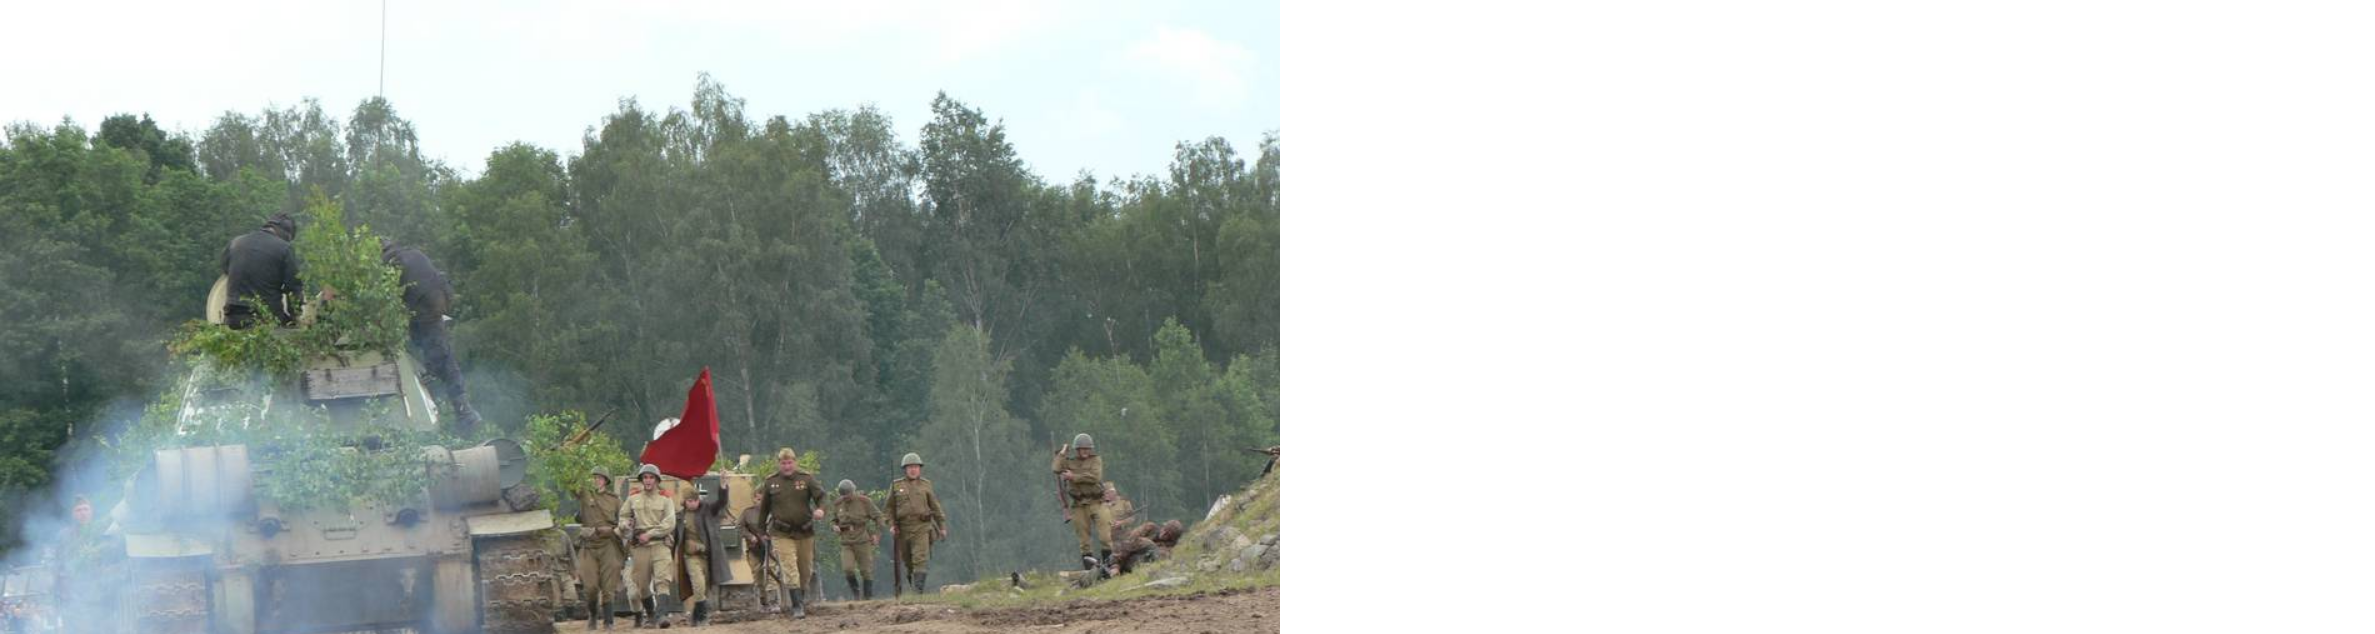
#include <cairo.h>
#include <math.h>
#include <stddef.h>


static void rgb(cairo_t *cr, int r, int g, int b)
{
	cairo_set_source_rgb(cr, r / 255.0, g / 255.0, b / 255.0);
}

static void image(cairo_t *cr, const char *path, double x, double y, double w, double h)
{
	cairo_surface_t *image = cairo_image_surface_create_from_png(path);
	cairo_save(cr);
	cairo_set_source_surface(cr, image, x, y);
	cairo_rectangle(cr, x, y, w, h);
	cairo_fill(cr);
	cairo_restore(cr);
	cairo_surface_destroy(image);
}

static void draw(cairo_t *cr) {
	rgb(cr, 255, 255, 255);
	cairo_paint(cr);
	image(cr, "image0.png", 0, 0, 1280, 634);
}

int main(void) {
	cairo_surface_t *surface = cairo_image_surface_create(CAIRO_FORMAT_RGB24, 2375, 634);
	cairo_t *cr = cairo_create(surface);
	cairo_font_options_t *options = cairo_font_options_create();
	cairo_font_options_set_hint_metrics(options, CAIRO_HINT_METRICS_OFF);
	cairo_font_options_set_hint_style(options, CAIRO_HINT_STYLE_NONE);
	cairo_set_font_options(cr, options);
	cairo_set_miter_limit(cr, 4);
	draw(cr);
	cairo_surface_write_to_png(surface, "render.png");
	cairo_font_options_destroy(options);
	cairo_destroy(cr);
	cairo_surface_destroy(surface);
	return 0;
}
